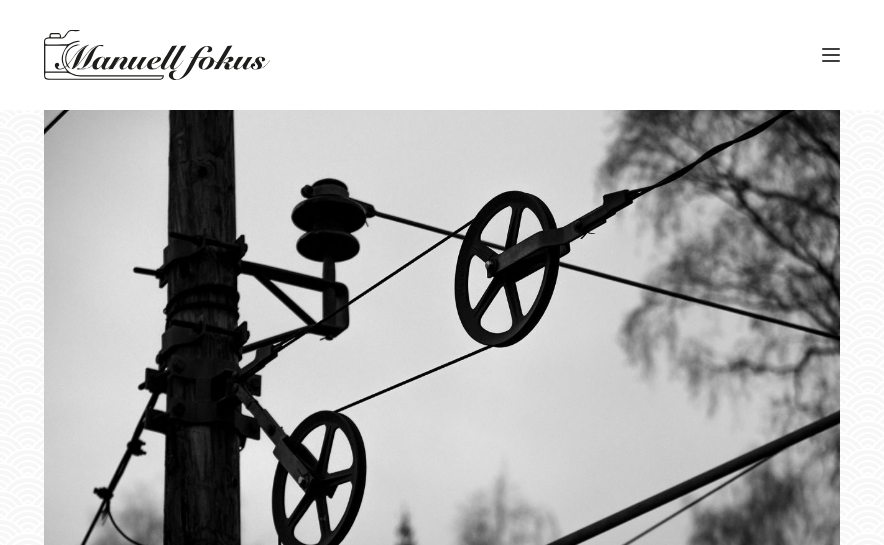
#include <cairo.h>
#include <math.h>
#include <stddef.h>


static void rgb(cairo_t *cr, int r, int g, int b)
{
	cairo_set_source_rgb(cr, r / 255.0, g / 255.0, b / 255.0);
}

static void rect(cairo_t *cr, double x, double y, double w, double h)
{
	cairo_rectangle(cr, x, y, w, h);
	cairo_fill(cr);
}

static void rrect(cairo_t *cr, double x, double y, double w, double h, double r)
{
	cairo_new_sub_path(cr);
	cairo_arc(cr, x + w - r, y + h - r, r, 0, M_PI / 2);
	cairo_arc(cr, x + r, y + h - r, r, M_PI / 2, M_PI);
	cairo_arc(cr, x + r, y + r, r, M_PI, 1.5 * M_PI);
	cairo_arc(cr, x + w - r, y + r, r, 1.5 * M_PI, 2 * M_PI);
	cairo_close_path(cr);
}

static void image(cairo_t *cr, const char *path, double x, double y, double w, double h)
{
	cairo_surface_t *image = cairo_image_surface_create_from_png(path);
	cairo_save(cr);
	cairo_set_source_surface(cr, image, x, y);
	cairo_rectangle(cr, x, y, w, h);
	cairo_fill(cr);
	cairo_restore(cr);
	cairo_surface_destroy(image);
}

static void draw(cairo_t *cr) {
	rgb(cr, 247, 247, 247);
	cairo_paint(cr);
	image(cr, "image0.png", 0, 110, 884, 435);
	rgb(cr, 255, 255, 255);
	rect(cr, 0, 0, 884, 110);
	image(cr, "image1.png", 44, 30, 226, 50);
	rgb(cr, 61, 61, 61);
	rrect(cr, 822, 48, 18, 2, 1);
	cairo_fill(cr);
	rrect(cr, 822, 54, 18, 2, 1);
	cairo_fill(cr);
	rrect(cr, 822, 60, 18, 2, 1);
	cairo_fill(cr);
	image(cr, "image2.png", 44, 110, 796, 435);
}

int main(void) {
	cairo_surface_t *surface = cairo_image_surface_create(CAIRO_FORMAT_RGB24, 884, 545);
	cairo_t *cr = cairo_create(surface);
	cairo_font_options_t *options = cairo_font_options_create();
	cairo_font_options_set_hint_metrics(options, CAIRO_HINT_METRICS_OFF);
	cairo_font_options_set_hint_style(options, CAIRO_HINT_STYLE_NONE);
	cairo_set_font_options(cr, options);
	cairo_set_miter_limit(cr, 4);
	draw(cr);
	cairo_surface_write_to_png(surface, "render.png");
	cairo_font_options_destroy(options);
	cairo_destroy(cr);
	cairo_surface_destroy(surface);
	return 0;
}
